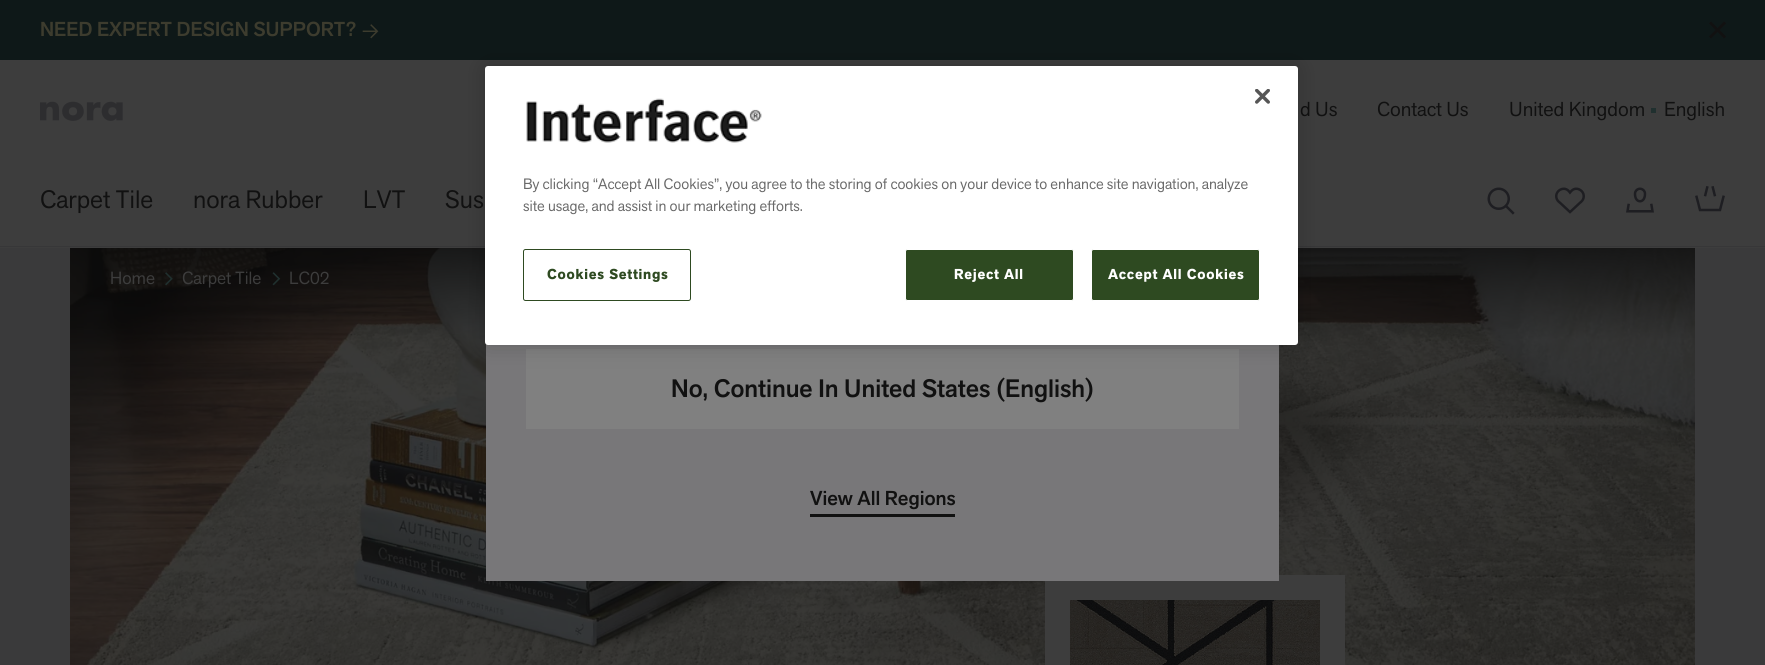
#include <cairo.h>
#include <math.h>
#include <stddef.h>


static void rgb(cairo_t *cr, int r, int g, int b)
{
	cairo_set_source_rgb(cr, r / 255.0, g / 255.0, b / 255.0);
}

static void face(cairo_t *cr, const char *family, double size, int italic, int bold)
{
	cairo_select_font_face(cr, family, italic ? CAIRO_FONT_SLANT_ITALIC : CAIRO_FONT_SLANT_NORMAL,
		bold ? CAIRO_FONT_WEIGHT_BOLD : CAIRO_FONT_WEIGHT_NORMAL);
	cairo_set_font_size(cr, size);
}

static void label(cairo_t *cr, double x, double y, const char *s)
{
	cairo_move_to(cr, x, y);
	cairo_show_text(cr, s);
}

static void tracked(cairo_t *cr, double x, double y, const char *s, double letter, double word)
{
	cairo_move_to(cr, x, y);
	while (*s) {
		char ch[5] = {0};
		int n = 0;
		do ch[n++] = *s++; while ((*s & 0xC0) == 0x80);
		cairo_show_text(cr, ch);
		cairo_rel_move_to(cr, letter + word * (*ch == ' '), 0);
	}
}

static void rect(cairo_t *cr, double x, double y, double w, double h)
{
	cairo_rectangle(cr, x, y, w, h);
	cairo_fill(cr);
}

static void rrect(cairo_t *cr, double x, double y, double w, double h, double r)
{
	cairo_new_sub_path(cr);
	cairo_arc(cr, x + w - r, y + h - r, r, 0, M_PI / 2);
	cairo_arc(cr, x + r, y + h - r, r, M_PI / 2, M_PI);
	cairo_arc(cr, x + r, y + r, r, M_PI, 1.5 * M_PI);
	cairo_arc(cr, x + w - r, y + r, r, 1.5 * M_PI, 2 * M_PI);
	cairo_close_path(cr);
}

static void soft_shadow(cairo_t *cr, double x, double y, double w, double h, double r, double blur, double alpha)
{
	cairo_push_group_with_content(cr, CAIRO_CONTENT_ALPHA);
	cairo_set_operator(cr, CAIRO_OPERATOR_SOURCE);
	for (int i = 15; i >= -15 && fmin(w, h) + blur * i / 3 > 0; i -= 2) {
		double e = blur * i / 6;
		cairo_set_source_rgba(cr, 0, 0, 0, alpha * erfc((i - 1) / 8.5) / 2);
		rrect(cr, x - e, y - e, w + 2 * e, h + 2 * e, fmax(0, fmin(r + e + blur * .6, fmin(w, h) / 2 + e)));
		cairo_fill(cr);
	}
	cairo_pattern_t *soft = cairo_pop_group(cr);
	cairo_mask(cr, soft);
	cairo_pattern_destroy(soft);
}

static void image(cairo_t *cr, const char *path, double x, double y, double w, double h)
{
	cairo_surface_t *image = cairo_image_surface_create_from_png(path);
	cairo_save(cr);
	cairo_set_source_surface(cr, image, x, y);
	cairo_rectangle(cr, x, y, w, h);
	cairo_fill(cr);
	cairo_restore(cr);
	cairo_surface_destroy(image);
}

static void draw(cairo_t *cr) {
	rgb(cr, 58, 58, 59);
	cairo_paint(cr);
	rgb(cr, 14, 24, 24);
	rect(cr, 0, 0, 1765, 60);
	face(cr, "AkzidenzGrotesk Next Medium", 20, 0, 0);
	rgb(cr, 61, 60, 46);
	label(cr, 40, 36, "NEED EXPERT DESIGN SUPPORT?");
	image(cr, "image0.png", 362, 24, 17, 15);
	image(cr, "image1.png", 1709, 21, 17, 18);
	rgb(cr, 61, 61, 61);
	rect(cr, 0, 60, 1765, 188);
	image(cr, "image2.png", 40, 101, 83, 20);
	face(cr, "AkzidenzGrotesk Next", 20, 0, 0);
	rgb(cr, 17, 17, 17);
	label(cr, 1300, 116, "d Us");
	label(cr, 1377, 116, "Contact Us");
	label(cr, 1509, 116, "United Kingdom");
	rgb(cr, 32, 48, 47);
	rect(cr, 1651, 108, 5, 5);
	rgb(cr, 17, 17, 17);
	label(cr, 1664, 116, "English");
	rgb(cr, 55, 55, 56);
	rect(cr, 0, 246, 1765, 1);
	face(cr, "AkzidenzGrotesk Next", 25, 0, 0);
	rgb(cr, 17, 17, 17);
	label(cr, 40, 208, "Carpet Tile");
	label(cr, 193, 208, "nora Rubber");
	label(cr, 363, 208, "LVT");
	label(cr, 445, 208, "Sus");
	image(cr, "image3.png", 1487, 187, 28, 28);
	image(cr, "image4.png", 1555, 187, 30, 27);
	image(cr, "image5.png", 1626, 187, 28, 26);
	image(cr, "image6.png", 1695, 186, 30, 26);
	image(cr, "image7.png", 70, 248, 1625, 417);
	face(cr, "AkzidenzGrotesk Next", 17.5, 0, 0);
	rgb(cr, 61, 61, 61);
	label(cr, 110, 284, "Home");
	image(cr, "image8.png", 165, 272, 8, 14);
	label(cr, 182, 284, "Carpet Tile");
	image(cr, "image9.png", 272, 272, 9, 14);
	label(cr, 289, 284, "LC02");
	cairo_rectangle(cr, 1057.5, 587.5, 275, 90);
	cairo_set_line_width(cr, 25);
	cairo_stroke(cr);
	image(cr, "image10.png", 1070, 600, 250, 65);
	rgb(cr, 120, 119, 121);
	rect(cr, 486, 344, 793, 237);
	rgb(cr, 128, 128, 128);
	rect(cr, 526, 349, 713, 80);
	face(cr, "AkzidenzGrotesk Next Medium", 25, 0, 0);
	rgb(cr, 17, 17, 17);
	label(cr, 671, 397, "No, Continue In United States (English)");
	rect(cr, 810, 514, 145, 3);
	face(cr, "AkzidenzGrotesk Next Medium", 20, 0, 0);
	label(cr, 810, 505, "View All Regions");
	rgb(cr, 0, 0, 0);
	soft_shadow(cr, 485, 66, 813, 279, 3, 11, 0.2);
	rgb(cr, 255, 255, 255);
	rrect(cr, 485, 66, 813, 279, 3);
	cairo_fill(cr);
	image(cr, "image11.png", 1255, 89, 15, 15);
	image(cr, "image12.png", 526, 98, 236, 45);
	face(cr, "AkzidenzGrotesk Next", 14.9, 0, 0);
	rgb(cr, 105, 105, 105);
	label(cr, 523, 189, "By clicking “Accept All Cookies”, you agree to the storing of cookies on your device to enhance site navigation, analyze");
	label(cr, 523, 211, "site usage, and assist in our marketing efforts.");
	rrect(cr, 523.5, 249.5, 167, 51, 2);
	rgb(cr, 46, 74, 33);
	cairo_set_line_width(cr, 1);
	cairo_stroke(cr);
	face(cr, "AkzidenzGrotesk Next", 14.25, 0, 1);
	tracked(cr, 547, 279, "Cookies Settings", 0.75, 0);
	rrect(cr, 905.5, 249.5, 168, 51, 2);
	cairo_fill_preserve(cr);
	rgb(cr, 255, 255, 255);
	cairo_stroke(cr);
	tracked(cr, 954, 279, "Reject All", 0.75, 0);
	rgb(cr, 46, 74, 33);
	rrect(cr, 1091.5, 249.5, 168, 51, 2);
	cairo_fill_preserve(cr);
	rgb(cr, 255, 255, 255);
	cairo_stroke(cr);
	tracked(cr, 1108, 279, "Accept All Cookies", 0.75, 0);
}

int main(void) {
	cairo_surface_t *surface = cairo_image_surface_create(CAIRO_FORMAT_RGB24, 1765, 665);
	cairo_t *cr = cairo_create(surface);
	cairo_font_options_t *options = cairo_font_options_create();
	cairo_font_options_set_hint_metrics(options, CAIRO_HINT_METRICS_OFF);
	cairo_font_options_set_hint_style(options, CAIRO_HINT_STYLE_NONE);
	cairo_set_font_options(cr, options);
	cairo_set_miter_limit(cr, 4);
	draw(cr);
	cairo_surface_write_to_png(surface, "render.png");
	cairo_font_options_destroy(options);
	cairo_destroy(cr);
	cairo_surface_destroy(surface);
	return 0;
}
